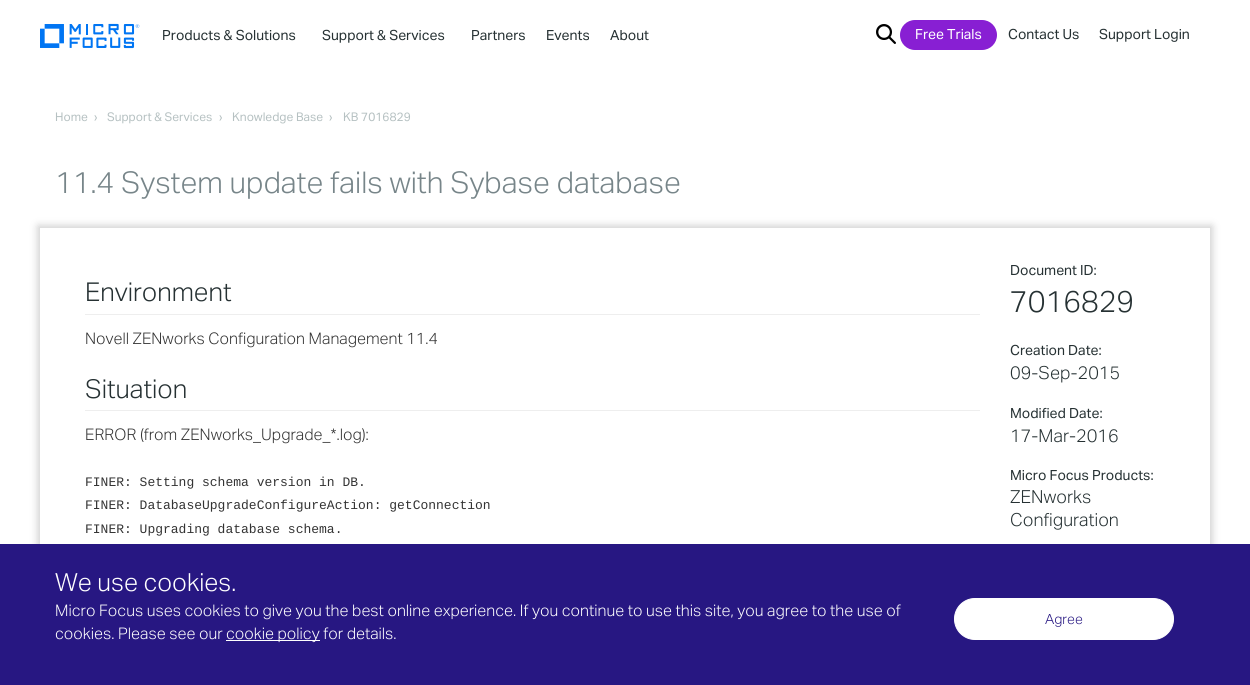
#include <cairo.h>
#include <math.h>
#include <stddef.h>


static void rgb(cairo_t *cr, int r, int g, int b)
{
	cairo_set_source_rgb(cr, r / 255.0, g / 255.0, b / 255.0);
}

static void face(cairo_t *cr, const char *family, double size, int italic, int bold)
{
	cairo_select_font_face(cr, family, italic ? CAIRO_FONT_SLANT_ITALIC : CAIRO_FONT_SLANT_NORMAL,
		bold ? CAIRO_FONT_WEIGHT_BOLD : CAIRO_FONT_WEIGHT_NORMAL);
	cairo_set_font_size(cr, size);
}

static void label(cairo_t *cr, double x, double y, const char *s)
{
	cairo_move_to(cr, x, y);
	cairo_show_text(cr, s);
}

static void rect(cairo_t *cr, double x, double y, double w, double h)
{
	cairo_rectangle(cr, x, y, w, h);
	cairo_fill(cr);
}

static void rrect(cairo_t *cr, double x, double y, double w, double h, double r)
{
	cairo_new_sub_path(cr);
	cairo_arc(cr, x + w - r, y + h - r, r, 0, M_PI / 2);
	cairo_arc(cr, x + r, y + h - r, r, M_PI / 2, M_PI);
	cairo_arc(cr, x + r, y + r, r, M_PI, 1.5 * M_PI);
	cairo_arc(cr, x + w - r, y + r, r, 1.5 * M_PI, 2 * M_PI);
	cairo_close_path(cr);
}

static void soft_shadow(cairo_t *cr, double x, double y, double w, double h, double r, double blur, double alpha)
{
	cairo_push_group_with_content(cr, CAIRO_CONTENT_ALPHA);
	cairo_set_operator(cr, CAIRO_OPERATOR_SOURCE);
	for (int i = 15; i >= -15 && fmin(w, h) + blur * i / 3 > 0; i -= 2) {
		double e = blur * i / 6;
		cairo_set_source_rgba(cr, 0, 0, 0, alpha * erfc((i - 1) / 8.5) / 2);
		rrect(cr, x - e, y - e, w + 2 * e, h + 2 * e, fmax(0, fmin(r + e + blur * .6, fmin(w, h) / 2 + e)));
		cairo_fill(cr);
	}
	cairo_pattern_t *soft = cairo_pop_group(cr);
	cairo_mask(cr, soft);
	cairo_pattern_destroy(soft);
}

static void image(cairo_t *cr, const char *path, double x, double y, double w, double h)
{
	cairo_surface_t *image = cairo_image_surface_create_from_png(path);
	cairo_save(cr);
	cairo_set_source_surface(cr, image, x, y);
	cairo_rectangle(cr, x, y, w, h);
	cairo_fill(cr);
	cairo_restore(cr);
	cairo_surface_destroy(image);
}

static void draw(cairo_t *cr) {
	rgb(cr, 255, 255, 255);
	cairo_paint(cr);
	image(cr, "image0.png", 40, 23, 100, 26);
	face(cr, "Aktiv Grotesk", 14, 0, 0);
	rgb(cr, 38, 49, 51);
	label(cr, 162, 40, "Products & Solutions");
	label(cr, 322, 40, "Support & Services");
	label(cr, 471, 40, "Partners");
	label(cr, 546, 40, "Events");
	label(cr, 610, 40, "About");
	image(cr, "image1.png", 876, 24, 20, 20);
	rgb(cr, 136, 31, 211);
	rrect(cr, 900, 20, 97, 30, 15);
	cairo_fill(cr);
	rgb(cr, 255, 255, 255);
	label(cr, 915, 39, "Free Trials");
	rgb(cr, 38, 49, 51);
	label(cr, 1008, 39, "Contact Us");
	label(cr, 1099, 39, "Support Login");
	face(cr, "Aktiv Grotesk", 12, 0, 0);
	rgb(cr, 182, 193, 194);
	label(cr, 55, 121, "Home");
	label(cr, 94, 121, "›");
	label(cr, 107, 121, "Support & Services");
	label(cr, 219, 121, "›");
	label(cr, 232, 121, "Knowledge Base");
	label(cr, 329, 121, "›");
	label(cr, 343, 121, "KB 7016829");
	face(cr, "Aktiv Grotesk Light", 30, 0, 0);
	rgb(cr, 119, 133, 137);
	label(cr, 55, 193, "11.4 System update fails with Sybase database");
	cairo_save(cr);
	cairo_set_fill_rule(cr, CAIRO_FILL_RULE_EVEN_ODD);
	cairo_new_path(cr);
	cairo_move_to(cr, 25, 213);
	cairo_line_to(cr, 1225, 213);
	cairo_line_to(cr, 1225, 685);
	cairo_line_to(cr, 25, 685);
	cairo_close_path(cr);
	cairo_move_to(cr, 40, 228);
	cairo_line_to(cr, 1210, 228);
	cairo_line_to(cr, 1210, 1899);
	cairo_line_to(cr, 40, 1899);
	cairo_close_path(cr);
	cairo_clip(cr);
	rgb(cr, 204, 204, 204);
	soft_shadow(cr, 38, 226, 1174, 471, 0, 4, 1);
	cairo_restore(cr);
	rgb(cr, 238, 238, 238);
	rect(cr, 85, 314, 895, 1);
	face(cr, "Aktiv Grotesk Light", 26, 0, 0);
	rgb(cr, 38, 49, 51);
	label(cr, 85, 301, "Environment");
	face(cr, "Aktiv Grotesk Light", 16, 0, 0);
	rgb(cr, 51, 51, 51);
	label(cr, 85, 344, "Novell ZENworks Configuration Management 11.4");
	rgb(cr, 238, 238, 238);
	rect(cr, 85, 410, 895, 1);
	face(cr, "Aktiv Grotesk Light", 26, 0, 0);
	rgb(cr, 38, 49, 51);
	label(cr, 85, 398, "Situation");
	face(cr, "Aktiv Grotesk Light", 16, 0, 0);
	rgb(cr, 51, 51, 51);
	label(cr, 85, 440, "ERROR (from ZENworks_Upgrade_*.log):");
	face(cr, "Liberation Mono", 13, 0, 0);
	label(cr, 85, 486, "FINER: Setting schema version in DB.");
	label(cr, 85, 509, "FINER: DatabaseUpgradeConfigureAction: getConnection");
	label(cr, 85, 533, "FINER: Upgrading database schema.");
	face(cr, "Aktiv Grotesk", 14, 0, 0);
	rgb(cr, 38, 49, 51);
	label(cr, 1010, 275, "Document ID:");
	face(cr, "Aktiv Grotesk Light", 30, 0, 0);
	label(cr, 1010, 312, "7016829");
	face(cr, "Aktiv Grotesk", 14, 0, 0);
	label(cr, 1010, 355, "Creation Date:");
	face(cr, "Aktiv Grotesk Light", 18, 0, 0);
	label(cr, 1010, 379, "09-Sep-2015");
	face(cr, "Aktiv Grotesk", 14, 0, 0);
	label(cr, 1010, 418, "Modified Date:");
	face(cr, "Aktiv Grotesk Light", 18, 0, 0);
	label(cr, 1010, 442, "17-Mar-2016");
	face(cr, "Aktiv Grotesk", 14, 0, 0);
	label(cr, 1010, 480, "Micro Focus Products:");
	face(cr, "Aktiv Grotesk Light", 18, 0, 0);
	label(cr, 1010, 503, "ZENworks");
	label(cr, 1010, 526, "Configuration");
	rgb(cr, 39, 23, 130);
	rect(cr, 0, 544, 1250, 141);
	face(cr, "Aktiv Grotesk Light", 25, 0, 0);
	rgb(cr, 255, 255, 255);
	label(cr, 55, 591, "We use cookies.");
	face(cr, "Aktiv Grotesk Light", 16, 0, 0);
	label(cr, 55, 616, "Micro Focus uses cookies to give you the best online experience. If you continue to use this site, you agree to the use of");
	label(cr, 55, 639, "cookies. Please see our");
	rect(cr, 226, 640, 94, 1);
	label(cr, 226, 639, "cookie policy for details.");
	rrect(cr, 954.5, 598.5, 219, 41, 20.5);
	cairo_fill_preserve(cr);
	cairo_set_line_width(cr, 1);
	cairo_stroke(cr);
	face(cr, "Aktiv Grotesk Light", 14, 0, 0);
	rgb(cr, 39, 23, 130);
	label(cr, 1045, 624, "Agree");
}

int main(void) {
	cairo_surface_t *surface = cairo_image_surface_create(CAIRO_FORMAT_RGB24, 1250, 685);
	cairo_t *cr = cairo_create(surface);
	cairo_font_options_t *options = cairo_font_options_create();
	cairo_font_options_set_hint_metrics(options, CAIRO_HINT_METRICS_OFF);
	cairo_font_options_set_hint_style(options, CAIRO_HINT_STYLE_NONE);
	cairo_set_font_options(cr, options);
	cairo_set_miter_limit(cr, 4);
	draw(cr);
	cairo_surface_write_to_png(surface, "render.png");
	cairo_font_options_destroy(options);
	cairo_destroy(cr);
	cairo_surface_destroy(surface);
	return 0;
}
